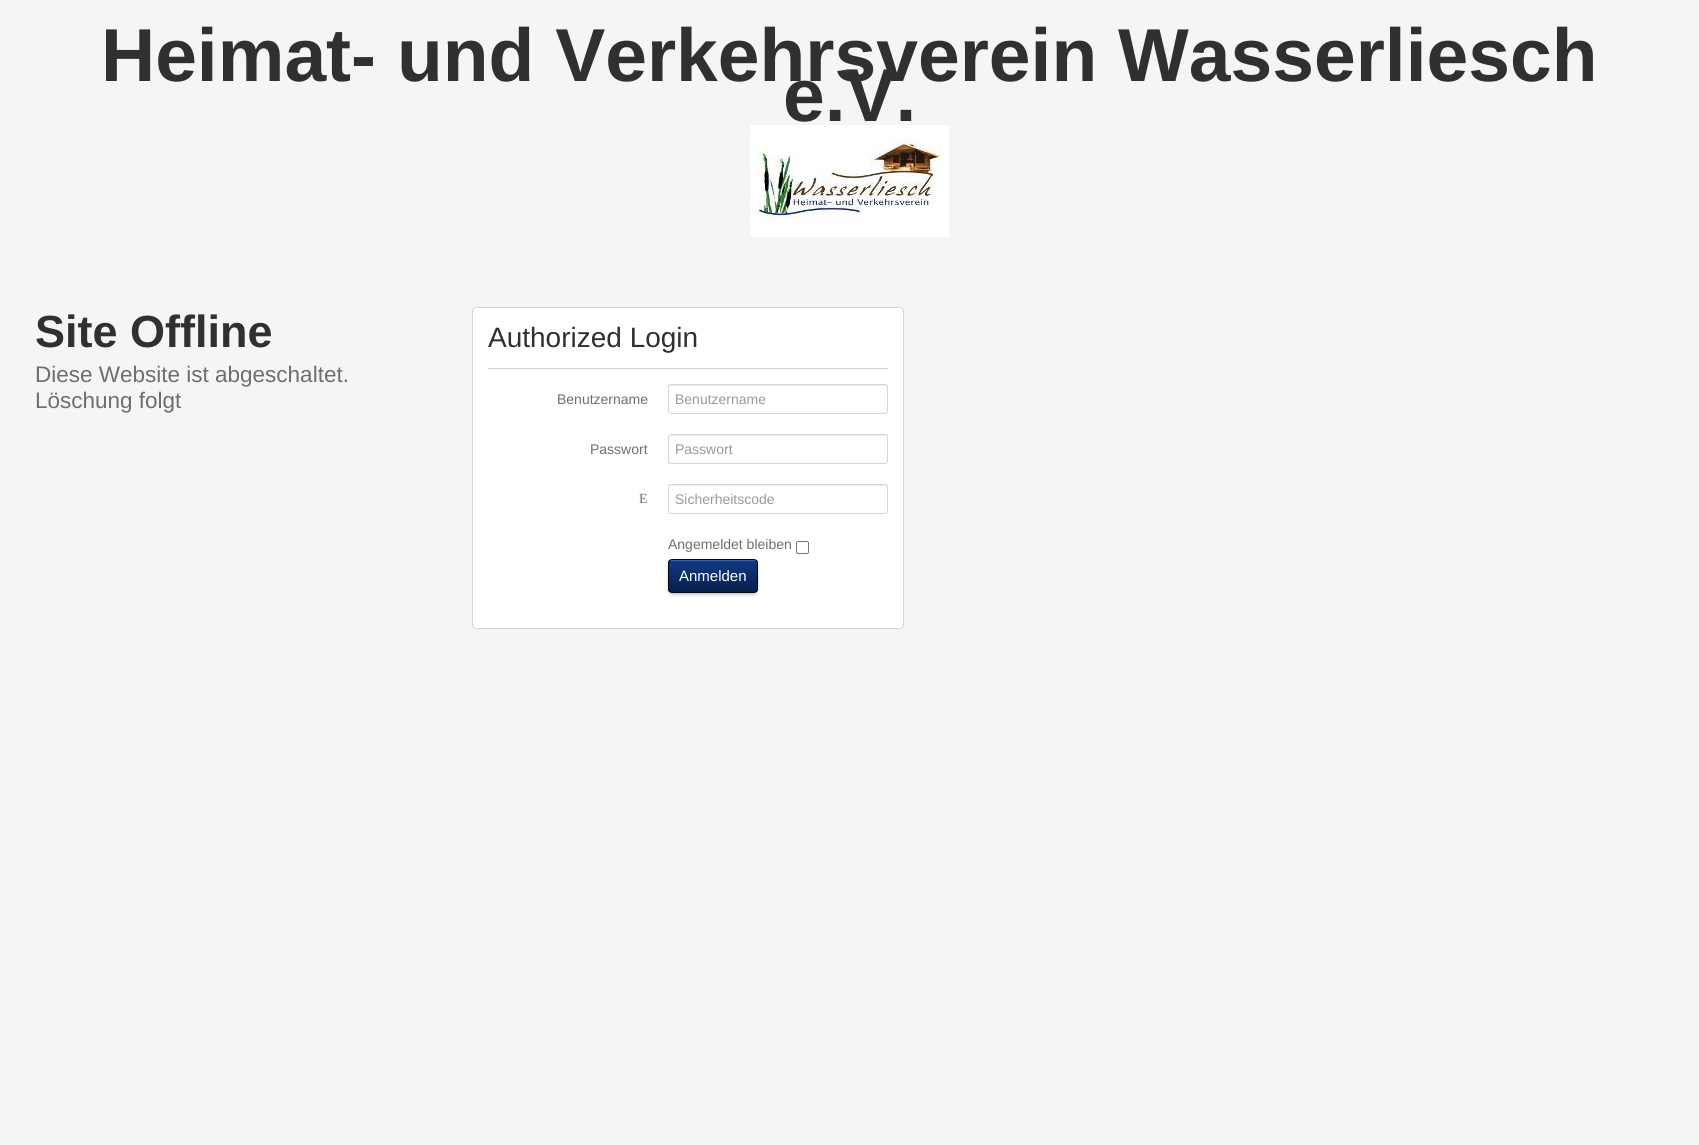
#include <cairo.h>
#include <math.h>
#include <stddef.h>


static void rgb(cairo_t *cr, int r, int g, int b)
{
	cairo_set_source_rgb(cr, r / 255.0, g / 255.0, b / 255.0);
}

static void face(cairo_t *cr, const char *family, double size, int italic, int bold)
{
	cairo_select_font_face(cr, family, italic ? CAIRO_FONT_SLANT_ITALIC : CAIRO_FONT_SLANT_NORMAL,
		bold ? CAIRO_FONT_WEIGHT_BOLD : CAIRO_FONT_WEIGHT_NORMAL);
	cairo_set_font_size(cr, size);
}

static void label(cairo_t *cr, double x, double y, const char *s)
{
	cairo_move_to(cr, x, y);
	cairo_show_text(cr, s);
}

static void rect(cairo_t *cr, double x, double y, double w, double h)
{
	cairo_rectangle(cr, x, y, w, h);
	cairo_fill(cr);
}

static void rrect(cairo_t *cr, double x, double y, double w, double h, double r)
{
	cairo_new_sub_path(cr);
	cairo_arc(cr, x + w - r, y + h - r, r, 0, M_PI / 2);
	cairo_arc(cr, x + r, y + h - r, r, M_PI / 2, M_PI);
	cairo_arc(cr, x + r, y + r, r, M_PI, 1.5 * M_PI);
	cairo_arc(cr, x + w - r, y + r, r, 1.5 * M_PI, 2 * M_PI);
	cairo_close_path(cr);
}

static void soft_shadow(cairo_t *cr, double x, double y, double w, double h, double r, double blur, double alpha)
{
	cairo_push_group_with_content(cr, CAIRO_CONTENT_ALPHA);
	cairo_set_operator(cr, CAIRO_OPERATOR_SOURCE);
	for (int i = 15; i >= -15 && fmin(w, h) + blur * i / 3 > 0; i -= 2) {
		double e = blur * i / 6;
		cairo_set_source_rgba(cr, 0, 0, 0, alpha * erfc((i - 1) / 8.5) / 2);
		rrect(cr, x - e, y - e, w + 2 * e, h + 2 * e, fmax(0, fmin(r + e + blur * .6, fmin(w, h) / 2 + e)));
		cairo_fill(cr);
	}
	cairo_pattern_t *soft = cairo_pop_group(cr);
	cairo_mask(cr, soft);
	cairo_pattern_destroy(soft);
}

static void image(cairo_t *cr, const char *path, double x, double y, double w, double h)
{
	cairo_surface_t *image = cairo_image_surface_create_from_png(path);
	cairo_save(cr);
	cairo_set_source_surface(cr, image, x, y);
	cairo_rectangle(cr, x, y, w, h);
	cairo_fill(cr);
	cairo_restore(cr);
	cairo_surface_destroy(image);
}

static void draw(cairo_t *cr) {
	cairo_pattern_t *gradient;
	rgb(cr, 245, 245, 245);
	cairo_paint(cr);
	face(cr, "Liberation Sans", 75, 0, 1);
	rgb(cr, 48, 48, 48);
	label(cr, 101, 81, "Heimat- und Verkehrsverein Wasserliesch");
	label(cr, 783, 121, "e.V.");
	image(cr, "image0.png", 750, 125, 199, 112);
	face(cr, "Liberation Sans", 45, 0, 1);
	label(cr, 35, 347, "Site Offline");
	face(cr, "Liberation Sans", 22.5, 0, 0);
	rgb(cr, 110, 110, 110);
	label(cr, 35, 382, "Diese Website ist abgeschaltet.");
	label(cr, 35, 408, "Löschung folgt");
	rgb(cr, 255, 255, 255);
	rrect(cr, 472.5, 307.5, 431, 321, 3.5);
	cairo_fill_preserve(cr);
	rgb(cr, 213, 213, 213);
	cairo_set_line_width(cr, 1);
	cairo_stroke(cr);
	rgb(cr, 209, 209, 209);
	rect(cr, 488, 368, 400, 1);
	face(cr, "Liberation Sans", 28, 0, 0);
	rgb(cr, 48, 48, 48);
	label(cr, 488, 347, "Authorized Login");
	face(cr, "Liberation Sans", 14, 0, 0);
	rgb(cr, 110, 110, 110);
	label(cr, 557, 404, "Benutzername");
	rgb(cr, 236, 236, 236);
	cairo_new_path(cr);
	cairo_move_to(cr, 671, 386);
	cairo_line_to(cr, 885, 386);
	cairo_curve_to(cr, 886, 386, 887, 387, 887, 388);
	cairo_curve_to(cr, 887, 387, 887, 385, 885, 385);
	cairo_line_to(cr, 671, 385);
	cairo_line_to(cr, 670, 386);
	cairo_line_to(cr, 669, 388);
	cairo_curve_to(cr, 669, 387, 670, 386, 671, 386);
	cairo_close_path(cr);
	cairo_fill(cr);
	rrect(cr, 668.5, 384.5, 219, 29, 2.5);
	rgb(cr, 213, 213, 213);
	cairo_stroke(cr);
	rgb(cr, 153, 153, 153);
	label(cr, 675, 404, "Benutzername");
	rgb(cr, 110, 110, 110);
	label(cr, 590, 454, "Passwort");
	rgb(cr, 236, 236, 236);
	cairo_new_path(cr);
	cairo_move_to(cr, 671, 436);
	cairo_line_to(cr, 885, 436);
	cairo_curve_to(cr, 886, 436, 887, 437, 887, 438);
	cairo_curve_to(cr, 887, 437, 887, 435, 885, 435);
	cairo_line_to(cr, 671, 435);
	cairo_line_to(cr, 670, 436);
	cairo_line_to(cr, 669, 438);
	cairo_curve_to(cr, 669, 437, 670, 436, 671, 436);
	cairo_close_path(cr);
	cairo_fill(cr);
	rrect(cr, 668.5, 434.5, 219, 29, 2.5);
	rgb(cr, 213, 213, 213);
	cairo_stroke(cr);
	rgb(cr, 153, 153, 153);
	label(cr, 675, 454, "Passwort");
	face(cr, "Liberation Serif", 14, 0, 0);
	rgb(cr, 110, 110, 110);
	label(cr, 639, 503, "E");
	rgb(cr, 236, 236, 236);
	cairo_new_path(cr);
	cairo_move_to(cr, 671, 486);
	cairo_line_to(cr, 885, 486);
	cairo_curve_to(cr, 886, 486, 887, 487, 887, 488);
	cairo_curve_to(cr, 887, 487, 887, 485, 885, 485);
	cairo_line_to(cr, 671, 485);
	cairo_line_to(cr, 670, 486);
	cairo_line_to(cr, 669, 488);
	cairo_curve_to(cr, 669, 487, 670, 486, 671, 486);
	cairo_close_path(cr);
	cairo_fill(cr);
	rrect(cr, 668.5, 484.5, 219, 29, 2.5);
	rgb(cr, 213, 213, 213);
	cairo_stroke(cr);
	face(cr, "Liberation Sans", 14, 0, 0);
	rgb(cr, 153, 153, 153);
	label(cr, 675, 504, "Sicherheitscode");
	rgb(cr, 110, 110, 110);
	label(cr, 668, 549, "Angemeldet bleiben");
	rrect(cr, 796.5, 541.5, 12, 12, 1.5);
	rgb(cr, 118, 118, 118);
	cairo_stroke(cr);
	rgb(cr, 0, 0, 0);
	soft_shadow(cr, 668, 561, 90, 34, 4, 1.5, 0.2);
	cairo_save(cr);
	rrect(cr, 668, 559, 90, 34, 4);
	cairo_clip(cr);
	gradient = cairo_pattern_create_linear(713, 560, 713, 592);
	cairo_pattern_add_color_stop_rgba(gradient, 0, 0.059, 0.227, 0.522, 1);
	cairo_pattern_add_color_stop_rgba(gradient, 1, 0.031, 0.125, 0.29, 1);
	cairo_set_source(cr, gradient);
	cairo_pattern_destroy(gradient);
	rect(cr, 668, 560, 90, 32);
	cairo_restore(cr);
	cairo_set_source_rgba(cr, 1, 1, 1, 0.2);
	cairo_new_path(cr);
	cairo_move_to(cr, 672, 561);
	cairo_line_to(cr, 754, 561);
	cairo_curve_to(cr, 756, 561, 757, 562, 757, 564);
	cairo_curve_to(cr, 757, 556, 744, 560, 740, 560);
	cairo_line_to(cr, 686, 560);
	cairo_curve_to(cr, 682, 560, 669, 556, 669, 564);
	cairo_curve_to(cr, 669, 562, 670, 561, 672, 561);
	cairo_close_path(cr);
	cairo_fill(cr);
	rrect(cr, 668.5, 559.5, 89, 33, 3.5);
	rgb(cr, 3, 10, 23);
	cairo_stroke(cr);
	face(cr, "Liberation Sans", 15, 0, 0);
	rgb(cr, 255, 255, 255);
	label(cr, 679, 581, "Anmelden");
}

int main(void) {
	cairo_surface_t *surface = cairo_image_surface_create(CAIRO_FORMAT_RGB24, 1699, 1145);
	cairo_t *cr = cairo_create(surface);
	cairo_font_options_t *options = cairo_font_options_create();
	cairo_font_options_set_hint_metrics(options, CAIRO_HINT_METRICS_OFF);
	cairo_font_options_set_hint_style(options, CAIRO_HINT_STYLE_NONE);
	cairo_set_font_options(cr, options);
	cairo_set_miter_limit(cr, 4);
	draw(cr);
	cairo_surface_write_to_png(surface, "render.png");
	cairo_font_options_destroy(options);
	cairo_destroy(cr);
	cairo_surface_destroy(surface);
	return 0;
}
